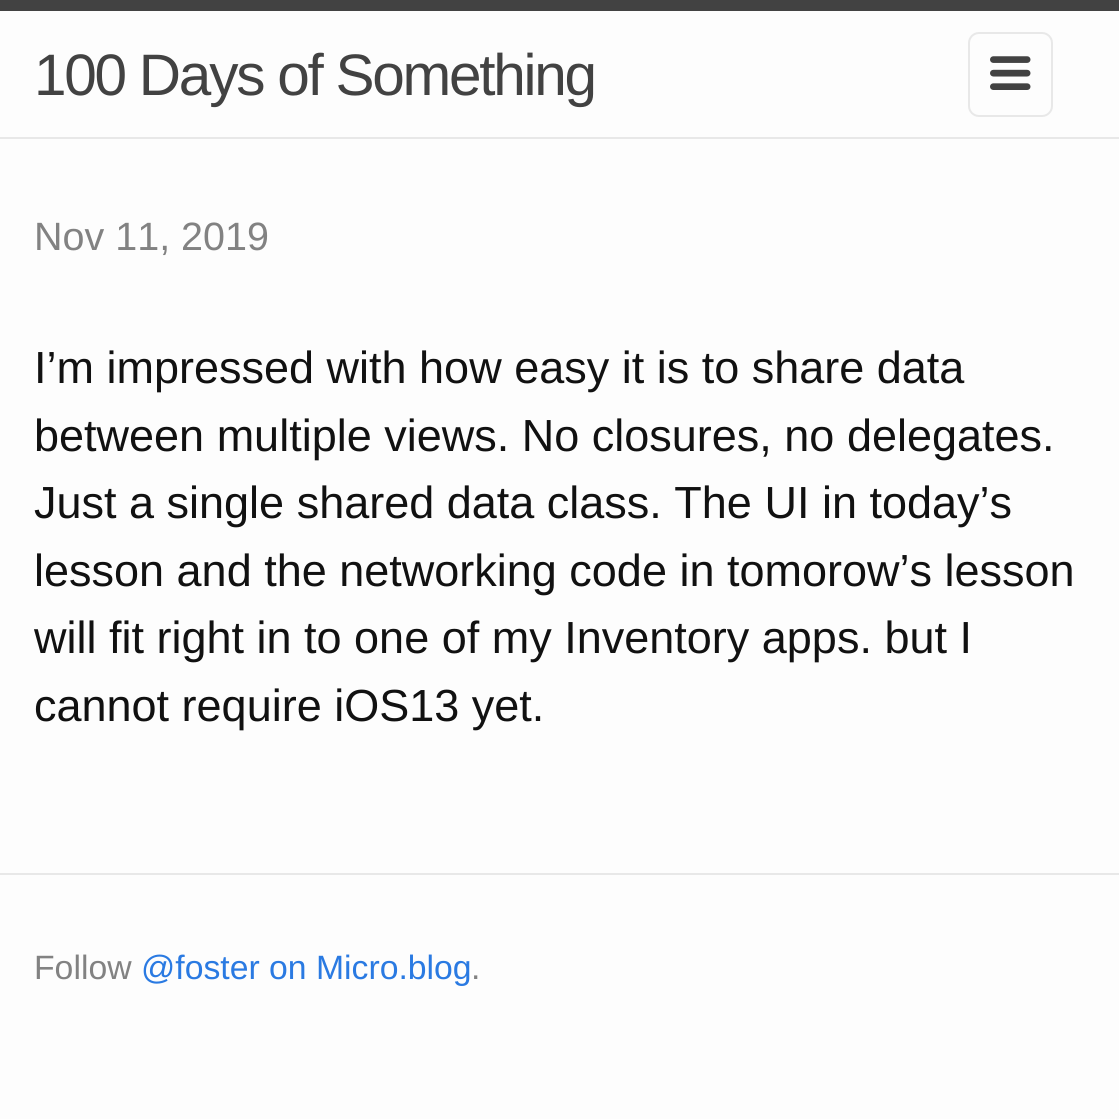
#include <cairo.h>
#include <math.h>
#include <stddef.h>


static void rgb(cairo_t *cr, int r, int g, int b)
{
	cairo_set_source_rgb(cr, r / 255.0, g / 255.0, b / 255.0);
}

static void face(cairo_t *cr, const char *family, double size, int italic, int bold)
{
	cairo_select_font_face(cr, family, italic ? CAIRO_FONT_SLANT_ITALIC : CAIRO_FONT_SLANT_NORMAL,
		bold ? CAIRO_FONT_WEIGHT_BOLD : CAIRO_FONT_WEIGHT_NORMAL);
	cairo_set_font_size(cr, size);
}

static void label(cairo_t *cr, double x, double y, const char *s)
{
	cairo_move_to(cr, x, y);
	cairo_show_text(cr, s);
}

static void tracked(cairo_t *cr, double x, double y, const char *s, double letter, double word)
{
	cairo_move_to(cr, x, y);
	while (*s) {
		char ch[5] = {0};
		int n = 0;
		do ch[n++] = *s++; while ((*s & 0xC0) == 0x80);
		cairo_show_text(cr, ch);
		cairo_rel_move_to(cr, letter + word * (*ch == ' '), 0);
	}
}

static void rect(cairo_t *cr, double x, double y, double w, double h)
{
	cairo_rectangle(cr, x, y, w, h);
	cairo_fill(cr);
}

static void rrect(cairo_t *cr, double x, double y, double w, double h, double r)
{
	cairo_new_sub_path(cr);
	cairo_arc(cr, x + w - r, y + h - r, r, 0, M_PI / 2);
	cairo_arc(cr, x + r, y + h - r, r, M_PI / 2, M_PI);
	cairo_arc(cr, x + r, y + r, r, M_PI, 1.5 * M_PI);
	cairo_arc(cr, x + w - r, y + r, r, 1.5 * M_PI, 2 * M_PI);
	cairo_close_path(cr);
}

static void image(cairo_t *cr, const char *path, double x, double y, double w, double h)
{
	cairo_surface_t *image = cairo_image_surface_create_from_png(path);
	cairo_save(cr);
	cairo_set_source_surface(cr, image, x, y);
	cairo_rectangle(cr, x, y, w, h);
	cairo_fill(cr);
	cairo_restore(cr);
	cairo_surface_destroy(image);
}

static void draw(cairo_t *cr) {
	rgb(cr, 253, 253, 253);
	cairo_paint(cr);
	rgb(cr, 66, 66, 66);
	rect(cr, 0, 0, 1119, 11);
	rgb(cr, 232, 232, 232);
	rect(cr, 0, 137, 1119, 2);
	face(cr, "Liberation Sans", 58.5, 0, 0);
	rgb(cr, 66, 66, 66);
	tracked(cr, 34, 95, "100 Days of Something", -2.25, 0);
	rrect(cr, 969, 33, 83, 83, 10);
	rgb(cr, 232, 232, 232);
	cairo_stroke(cr);
	image(cr, "image0.png", 990, 56, 41, 34);
	face(cr, "Liberation Sans", 39.5, 0, 0);
	rgb(cr, 130, 130, 130);
	label(cr, 34, 250, "Nov 11, 2019");
	face(cr, "Liberation Sans", 45, 0, 0);
	rgb(cr, 17, 17, 17);
	label(cr, 34, 383, "I’m impressed with how easy it is to share data");
	label(cr, 34, 451, "between multiple views. No closures, no delegates.");
	label(cr, 34, 518, "Just a single shared data class. The UI in today’s");
	label(cr, 34, 586, "lesson and the networking code in tomorow’s lesson");
	label(cr, 34, 653, "will fit right in to one of my Inventory apps. but I");
	label(cr, 34, 721, "cannot require iOS13 yet.");
	rgb(cr, 232, 232, 232);
	rect(cr, 0, 873, 1119, 2);
	face(cr, "Liberation Sans", 33.75, 0, 0);
	rgb(cr, 130, 130, 130);
	label(cr, 34, 979, "Follow");
	rgb(cr, 42, 122, 226);
	label(cr, 141, 979, "@foster on Micro.blog");
	rgb(cr, 130, 130, 130);
	label(cr, 471, 979, ".");
}

int main(void) {
	cairo_surface_t *surface = cairo_image_surface_create(CAIRO_FORMAT_RGB24, 1119, 1119);
	cairo_t *cr = cairo_create(surface);
	cairo_font_options_t *options = cairo_font_options_create();
	cairo_font_options_set_hint_metrics(options, CAIRO_HINT_METRICS_OFF);
	cairo_font_options_set_hint_style(options, CAIRO_HINT_STYLE_NONE);
	cairo_set_font_options(cr, options);
	cairo_set_miter_limit(cr, 4);
	draw(cr);
	cairo_surface_write_to_png(surface, "render.png");
	cairo_font_options_destroy(options);
	cairo_destroy(cr);
	cairo_surface_destroy(surface);
	return 0;
}
